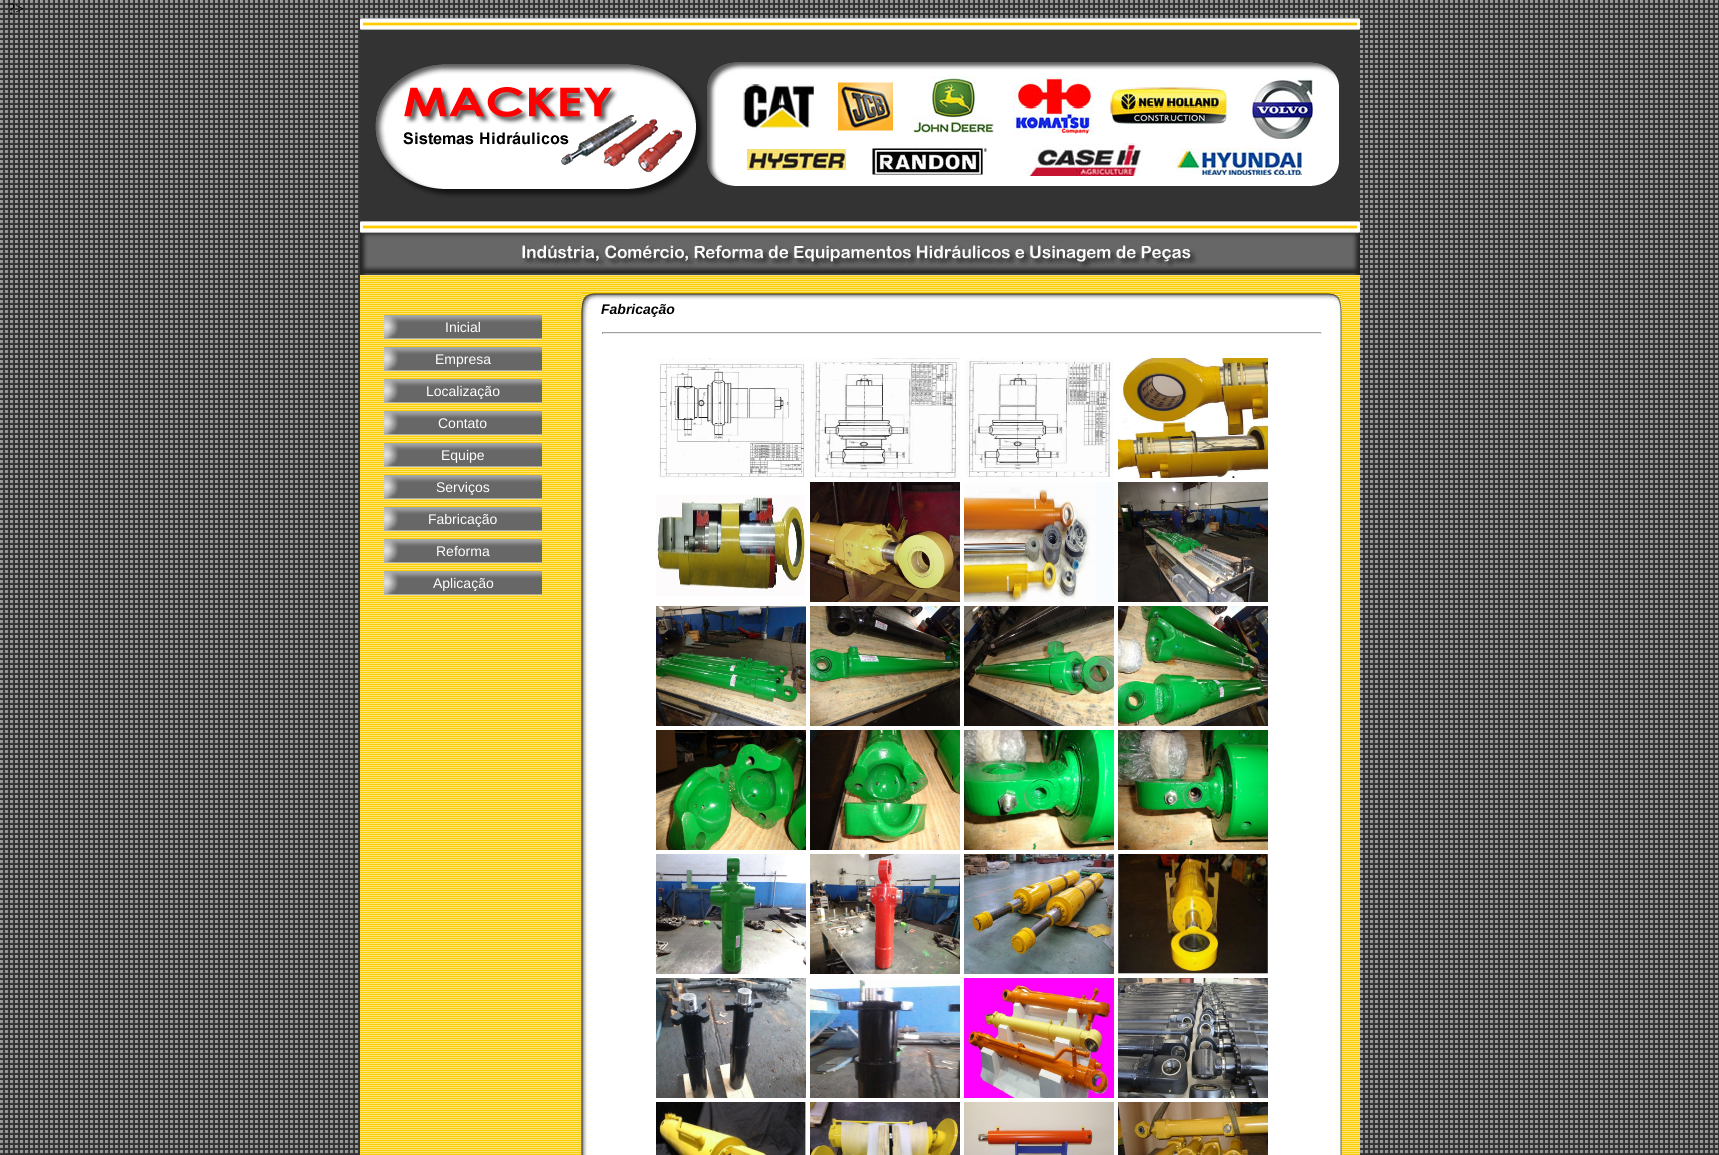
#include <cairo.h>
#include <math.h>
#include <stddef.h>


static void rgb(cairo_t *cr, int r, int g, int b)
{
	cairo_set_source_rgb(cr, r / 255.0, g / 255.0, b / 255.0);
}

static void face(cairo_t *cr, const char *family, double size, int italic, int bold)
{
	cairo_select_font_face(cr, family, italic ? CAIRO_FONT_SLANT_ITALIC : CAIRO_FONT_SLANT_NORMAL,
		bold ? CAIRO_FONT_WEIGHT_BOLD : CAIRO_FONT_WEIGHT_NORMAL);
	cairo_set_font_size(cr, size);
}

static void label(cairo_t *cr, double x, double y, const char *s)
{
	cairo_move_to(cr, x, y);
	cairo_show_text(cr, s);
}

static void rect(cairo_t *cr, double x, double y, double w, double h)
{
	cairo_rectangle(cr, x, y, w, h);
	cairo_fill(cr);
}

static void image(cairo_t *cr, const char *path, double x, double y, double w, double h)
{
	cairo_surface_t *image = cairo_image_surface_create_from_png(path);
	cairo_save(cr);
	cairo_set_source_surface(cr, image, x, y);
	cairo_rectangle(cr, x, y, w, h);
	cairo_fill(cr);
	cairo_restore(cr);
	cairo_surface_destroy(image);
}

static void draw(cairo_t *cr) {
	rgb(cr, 255, 255, 255);
	cairo_paint(cr);
	image(cr, "image0.png", 0, 0, 1719, 1155);
	face(cr, "Liberation Serif", 16, 0, 0);
	rgb(cr, 0, 0, 0);
	label(cr, 8, 14, "?>");
	image(cr, "image1.png", 360, 18, 1000, 215);
	image(cr, "image2.png", 360, 233, 1000, 42);
	image(cr, "image3.png", 360, 275, 1000, 880);
	image(cr, "image4.png", 581, 293, 761, 31);
	face(cr, "Liberation Sans", 14, 1, 1);
	label(cr, 601, 314, "Fabricação");
	image(cr, "image5.png", 581, 324, 761, 831);
	rgb(cr, 159, 159, 159);
	rect(cr, 602, 332, 720, 1);
	rgb(cr, 238, 238, 238);
	rect(cr, 1321, 332, 1, 2);
	rect(cr, 602, 333, 720, 1);
	rgb(cr, 159, 159, 159);
	rect(cr, 602, 332, 1, 2);
	image(cr, "image6.png", 658, 358, 147, 120);
	image(cr, "image7.png", 810, 358, 150, 120);
	image(cr, "image8.png", 965, 358, 148, 119);
	image(cr, "image9.png", 1118, 358, 150, 120);
	image(cr, "image10.png", 656, 495, 150, 101);
	image(cr, "image11.png", 810, 482, 150, 120);
	image(cr, "image12.png", 964, 482, 150, 120);
	image(cr, "image13.png", 1118, 482, 150, 120);
	image(cr, "image14.png", 656, 606, 150, 120);
	image(cr, "image15.png", 810, 606, 150, 120);
	image(cr, "image16.png", 964, 606, 150, 120);
	image(cr, "image17.png", 1118, 606, 150, 120);
	image(cr, "image18.png", 656, 730, 150, 120);
	image(cr, "image19.png", 810, 730, 150, 120);
	image(cr, "image20.png", 964, 730, 150, 120);
	image(cr, "image21.png", 1118, 730, 150, 120);
	image(cr, "image22.png", 656, 854, 150, 120);
	image(cr, "image23.png", 810, 854, 150, 120);
	image(cr, "image24.png", 964, 854, 150, 120);
	image(cr, "image25.png", 1118, 854, 150, 120);
	image(cr, "image26.png", 656, 978, 150, 120);
	image(cr, "image27.png", 810, 978, 150, 120);
	image(cr, "image28.png", 964, 978, 150, 120);
	image(cr, "image29.png", 1118, 978, 150, 120);
	image(cr, "image30.png", 656, 1102, 150, 53);
	image(cr, "image31.png", 810, 1102, 150, 53);
	image(cr, "image32.png", 964, 1102, 150, 53);
	image(cr, "image33.png", 1118, 1102, 150, 53);
	image(cr, "image34.png", 384, 315, 158, 24);
	face(cr, "Liberation Sans", 14, 0, 0);
	rgb(cr, 255, 255, 255);
	label(cr, 445, 332, "Inicial");
	image(cr, "image34.png", 384, 347, 158, 24);
	label(cr, 435, 364, "Empresa");
	image(cr, "image34.png", 384, 379, 158, 24);
	label(cr, 426, 396, "Localização");
	image(cr, "image34.png", 384, 411, 158, 24);
	label(cr, 438, 428, "Contato");
	image(cr, "image34.png", 384, 443, 158, 24);
	label(cr, 441, 460, "Equipe");
	image(cr, "image34.png", 384, 475, 158, 24);
	label(cr, 436, 492, "Serviços");
	image(cr, "image34.png", 384, 507, 158, 24);
	label(cr, 428, 524, "Fabricação");
	image(cr, "image34.png", 384, 539, 158, 24);
	label(cr, 436, 556, "Reforma");
	image(cr, "image34.png", 384, 571, 158, 24);
	label(cr, 433, 588, "Aplicação");
}

int main(void) {
	cairo_surface_t *surface = cairo_image_surface_create(CAIRO_FORMAT_RGB24, 1719, 1155);
	cairo_t *cr = cairo_create(surface);
	cairo_font_options_t *options = cairo_font_options_create();
	cairo_font_options_set_hint_metrics(options, CAIRO_HINT_METRICS_OFF);
	cairo_font_options_set_hint_style(options, CAIRO_HINT_STYLE_NONE);
	cairo_set_font_options(cr, options);
	cairo_set_miter_limit(cr, 4);
	draw(cr);
	cairo_surface_write_to_png(surface, "render.png");
	cairo_font_options_destroy(options);
	cairo_destroy(cr);
	cairo_surface_destroy(surface);
	return 0;
}
